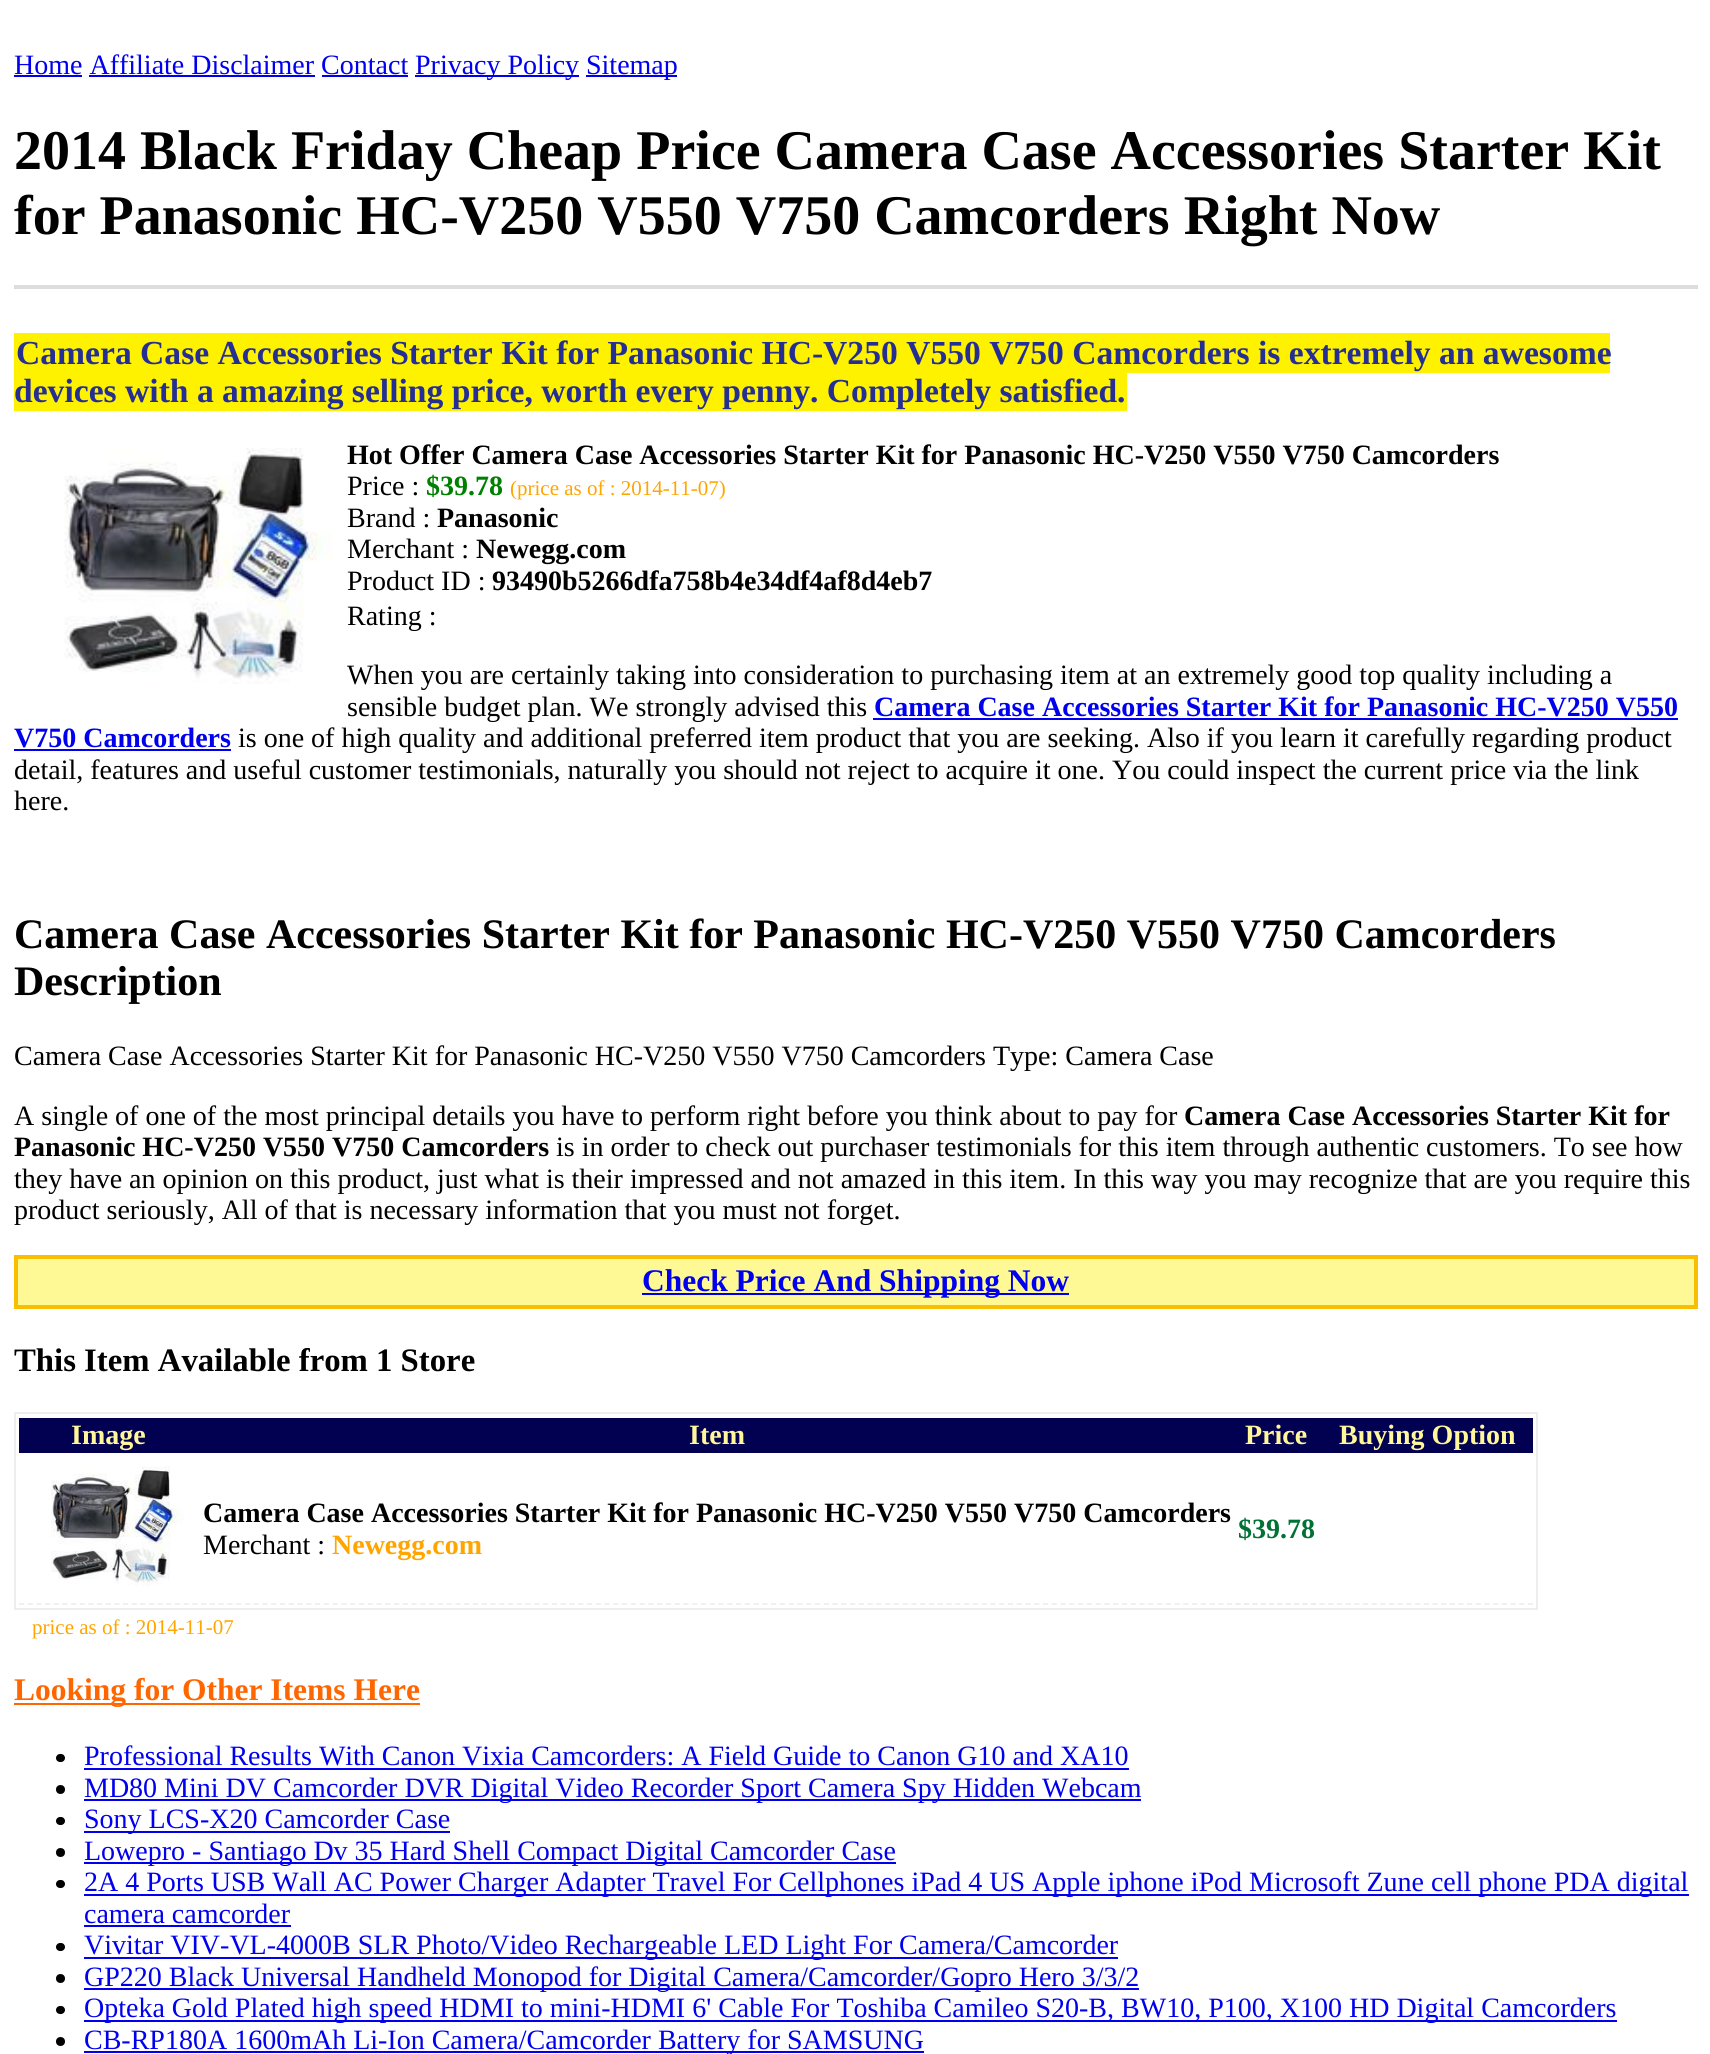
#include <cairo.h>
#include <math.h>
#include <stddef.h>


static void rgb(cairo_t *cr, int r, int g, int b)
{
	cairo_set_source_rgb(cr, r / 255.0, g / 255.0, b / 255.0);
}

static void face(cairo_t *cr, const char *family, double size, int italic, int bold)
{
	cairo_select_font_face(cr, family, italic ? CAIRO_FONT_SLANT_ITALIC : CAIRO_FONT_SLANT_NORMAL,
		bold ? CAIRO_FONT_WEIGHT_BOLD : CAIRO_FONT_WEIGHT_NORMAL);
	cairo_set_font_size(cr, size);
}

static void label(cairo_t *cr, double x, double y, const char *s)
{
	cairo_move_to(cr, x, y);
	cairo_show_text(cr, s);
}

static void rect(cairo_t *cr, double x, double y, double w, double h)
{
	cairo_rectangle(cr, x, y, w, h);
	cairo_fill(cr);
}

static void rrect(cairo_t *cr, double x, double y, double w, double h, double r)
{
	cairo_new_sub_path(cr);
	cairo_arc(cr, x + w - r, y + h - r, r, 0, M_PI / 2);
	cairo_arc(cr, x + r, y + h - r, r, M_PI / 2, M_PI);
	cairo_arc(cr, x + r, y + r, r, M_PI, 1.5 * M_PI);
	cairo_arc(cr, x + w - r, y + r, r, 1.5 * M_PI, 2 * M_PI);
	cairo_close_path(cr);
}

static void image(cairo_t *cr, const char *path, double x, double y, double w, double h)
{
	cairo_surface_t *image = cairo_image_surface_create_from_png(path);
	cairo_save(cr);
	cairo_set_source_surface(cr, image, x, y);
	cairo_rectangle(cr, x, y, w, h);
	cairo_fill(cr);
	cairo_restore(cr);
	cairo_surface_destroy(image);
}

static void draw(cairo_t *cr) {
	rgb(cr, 255, 255, 255);
	cairo_paint(cr);
	face(cr, "Liberation Serif", 28, 0, 0);
	rgb(cr, 0, 0, 238);
	label(cr, 14, 74, "Home Affiliate Disclaimer Contact");
	rect(cr, 14, 75, 68, 2);
	rect(cr, 415, 75, 164, 2);
	label(cr, 415, 74, "Privacy Policy");
	rect(cr, 586, 75, 91, 2);
	label(cr, 586, 74, "Sitemap");
	rect(cr, 89, 75, 226, 2);
	rect(cr, 322, 75, 86, 2);
	face(cr, "Liberation Serif", 56, 0, 1);
	rgb(cr, 0, 0, 0);
	label(cr, 14, 169, "2014 Black Friday Cheap Price Camera Case Accessories Starter Kit");
	label(cr, 14, 234, "for Panasonic HC-V250 V550 V750 Camcorders Right Now");
	rgb(cr, 221, 221, 221);
	rect(cr, 14, 285, 1684, 4);
	rgb(cr, 255, 242, 0);
	rect(cr, 14, 333, 1596, 40);
	face(cr, "Liberation Serif", 33.6, 0, 1);
	rgb(cr, 37, 46, 146);
	label(cr, 16, 364, "Camera Case Accessories Starter Kit for Panasonic HC-V250 V550 V750 Camcorders is extremely an awesome");
	rgb(cr, 255, 242, 0);
	rect(cr, 14, 373, 1113, 38);
	rgb(cr, 37, 46, 146);
	label(cr, 14, 402, "devices with a amazing selling price, worth every penny. Completely satisfied.");
	image(cr, "image0.png", 64, 448, 268, 236);
	face(cr, "Liberation Serif", 28, 0, 1);
	rgb(cr, 0, 0, 0);
	label(cr, 347, 464, "Hot Offer Camera Case Accessories Starter Kit for Panasonic HC-V250 V550 V750 Camcorders");
	face(cr, "Liberation Serif", 28, 0, 0);
	label(cr, 347, 495, "Price :");
	face(cr, "Liberation Serif", 28, 0, 1);
	rgb(cr, 0, 128, 0);
	label(cr, 426, 495, "$39.78");
	face(cr, "Liberation Serif", 21, 0, 0);
	rgb(cr, 255, 165, 0);
	label(cr, 510, 495, "(price as of : 2014-11-07)");
	face(cr, "Liberation Serif", 28, 0, 0);
	rgb(cr, 0, 0, 0);
	label(cr, 347, 527, "Brand :");
	face(cr, "Liberation Serif", 28, 0, 1);
	label(cr, 437, 527, "Panasonic");
	face(cr, "Liberation Serif", 28, 0, 0);
	label(cr, 347, 558, "Merchant :");
	face(cr, "Liberation Serif", 28, 0, 1);
	label(cr, 476, 558, "Newegg.com");
	face(cr, "Liberation Serif", 28, 0, 0);
	label(cr, 347, 590, "Product ID :");
	face(cr, "Liberation Serif", 28, 0, 1);
	label(cr, 492, 590, "93490b5266dfa758b4e34df4af8d4eb7");
	face(cr, "Liberation Serif", 28, 0, 0);
	label(cr, 347, 625, "Rating :");
	label(cr, 347, 684, "When you are certainly taking into consideration to purchasing item at an extremely good top quality including a");
	label(cr, 347, 716, "sensible budget plan. We strongly advised this");
	face(cr, "Liberation Serif", 28, 0, 1);
	rgb(cr, 0, 0, 238);
	label(cr, 874, 716, "Camera Case Accessories Starter Kit for Panasonic HC-V250 V550");
	rect(cr, 873, 718, 805, 2);
	label(cr, 14, 747, "V750 Camcorders");
	rect(cr, 14, 749, 217, 2);
	face(cr, "Liberation Serif", 28, 0, 0);
	rgb(cr, 0, 0, 0);
	label(cr, 238, 747, "is one of high quality and additional preferred item product that you are seeking. Also if you learn it carefully regarding product");
	label(cr, 14, 779, "detail, features and useful customer testimonials, naturally you should not reject to acquire it one. You could inspect the current price via the link");
	label(cr, 14, 810, "here.");
	face(cr, "Liberation Serif", 42, 0, 1);
	label(cr, 14, 948, "Camera Case Accessories Starter Kit for Panasonic HC-V250 V550 V750 Camcorders");
	label(cr, 14, 995, "Description");
	face(cr, "Liberation Serif", 28, 0, 0);
	label(cr, 14, 1065, "Camera Case Accessories Starter Kit for Panasonic HC-V250 V550 V750 Camcorders Type: Camera Case");
	label(cr, 14, 1125, "A single of one of the most principal details you have to perform right before you think about to pay for");
	face(cr, "Liberation Serif", 28, 0, 1);
	label(cr, 1184, 1125, "Camera Case Accessories Starter Kit for");
	label(cr, 14, 1156, "Panasonic HC-V250 V550 V750 Camcorders");
	face(cr, "Liberation Serif", 28, 0, 0);
	label(cr, 556, 1156, "is in order to check out purchaser testimonials for this item through authentic customers. To see how");
	label(cr, 14, 1188, "they have an opinion on this product, just what is their impressed and not amazed in this item. In this way you may recognize that are you require this");
	label(cr, 14, 1219, "product seriously, All of that is necessary information that you must not forget.");
	rgb(cr, 254, 249, 148);
	cairo_rectangle(cr, 16, 1257, 1680, 50);
	cairo_fill_preserve(cr);
	rgb(cr, 250, 190, 0);
	cairo_set_line_width(cr, 4);
	cairo_stroke(cr);
	rgb(cr, 0, 0, 238);
	rect(cr, 642, 1293, 427, 2);
	face(cr, "Liberation Serif", 31.5, 0, 1);
	label(cr, 642, 1291, "Check Price And Shipping Now");
	face(cr, "Liberation Serif", 32.75, 0, 1);
	rgb(cr, 0, 0, 0);
	label(cr, 14, 1371, "This Item Available from 1 Store");
	cairo_rectangle(cr, 15, 1413, 1522, 196);
	rgb(cr, 238, 238, 238);
	cairo_set_line_width(cr, 2);
	cairo_stroke(cr);
	rgb(cr, 2, 0, 80);
	rect(cr, 19, 1418, 1514, 35);
	face(cr, "Liberation Serif", 28, 0, 1);
	rgb(cr, 255, 247, 153);
	label(cr, 71, 1444, "Image");
	label(cr, 689, 1444, "Item");
	label(cr, 1245, 1444, "Price");
	label(cr, 1339, 1444, "Buying Option");
	cairo_new_path(cr);
	cairo_move_to(cr, 19, 1604);
	cairo_line_to(cr, 198, 1604);
	rgb(cr, 238, 238, 238);
	cairo_set_line_width(cr, 1.8);
	cairo_set_dash(cr, (double[]){5.25, 3.41}, 2, 0);
	cairo_stroke(cr);
	image(cr, "image1.png", 51, 1466, 133, 120);
	cairo_new_path(cr);
	cairo_move_to(cr, 201, 1604);
	cairo_line_to(cr, 1232, 1604);
	cairo_set_dash(cr, (double[]){5.25, 3.52}, 2, 0);
	cairo_stroke(cr);
	rgb(cr, 0, 0, 0);
	label(cr, 203, 1522, "Camera Case Accessories Starter Kit for Panasonic HC-V250 V550 V750 Camcorders");
	face(cr, "Liberation Serif", 28, 0, 0);
	label(cr, 203, 1554, "Merchant :");
	face(cr, "Liberation Serif", 28, 0, 1);
	rgb(cr, 255, 165, 0);
	label(cr, 332, 1554, "Newegg.com");
	cairo_new_path(cr);
	cairo_move_to(cr, 1235.5, 1604);
	cairo_line_to(cr, 1316, 1604);
	rgb(cr, 235, 235, 235);
	cairo_set_dash(cr, (double[]){5.25, 3.12}, 2, 0);
	cairo_stroke(cr);
	rgb(cr, 0, 114, 54);
	label(cr, 1238, 1538, "$39.78");
	cairo_new_path(cr);
	cairo_move_to(cr, 1319.5, 1604);
	cairo_line_to(cr, 1533, 1604);
	rgb(cr, 238, 238, 238);
	cairo_set_dash(cr, (double[]){5.25, 3.43}, 2, 0);
	cairo_stroke(cr);
	face(cr, "Liberation Serif", 21, 0, 0);
	rgb(cr, 255, 165, 0);
	label(cr, 32, 1634, "price as of : 2014-11-07");
	rgb(cr, 255, 102, 0);
	rect(cr, 14, 1703, 406, 2);
	face(cr, "Liberation Serif", 31.5, 0, 1);
	label(cr, 14, 1700, "Looking for Other Items Here");
	rgb(cr, 0, 0, 0);
	rrect(cr, 56, 1754, 9, 8, 4);
	cairo_fill(cr);
	face(cr, "Liberation Serif", 28, 0, 0);
	rgb(cr, 0, 0, 238);
	label(cr, 84, 1765, "Professional Results With Canon Vixia Camcorders: A Field Guide to Canon G10 and XA10");
	rect(cr, 84, 1768, 1045, 2);
	rgb(cr, 0, 0, 0);
	cairo_new_path(cr);
	cairo_arc(cr, 60.5, 1789.5, 4.5, 0, 2 * M_PI);
	cairo_fill(cr);
	rgb(cr, 0, 0, 238);
	rect(cr, 84, 1799, 1057, 2);
	label(cr, 84, 1797, "MD80 Mini DV Camcorder DVR Digital Video Recorder Sport Camera Spy Hidden Webcam");
	rgb(cr, 0, 0, 0);
	rrect(cr, 56, 1817, 9, 8, 4);
	cairo_fill(cr);
	rgb(cr, 0, 0, 238);
	rect(cr, 84, 1831, 366, 2);
	label(cr, 84, 1828, "Sony LCS-X20 Camcorder Case");
	rgb(cr, 0, 0, 0);
	cairo_new_path(cr);
	cairo_arc(cr, 60.5, 1852.5, 4.5, 0, 2 * M_PI);
	cairo_fill(cr);
	rgb(cr, 0, 0, 238);
	rect(cr, 84, 1862, 812, 2);
	label(cr, 84, 1860, "Lowepro - Santiago Dv 35 Hard Shell Compact Digital Camcorder Case");
	rgb(cr, 0, 0, 0);
	rrect(cr, 56, 1880, 9, 8, 4);
	cairo_fill(cr);
	rgb(cr, 0, 0, 238);
	rect(cr, 84, 1894, 1605, 2);
	label(cr, 84, 1891, "2A 4 Ports USB Wall AC Power Charger Adapter Travel For Cellphones iPad 4 US Apple iphone iPod Microsoft Zune cell phone PDA digital");
	label(cr, 84, 1923, "camera camcorder");
	rect(cr, 84, 1925, 207, 2);
	rgb(cr, 0, 0, 0);
	rrect(cr, 56, 1943, 9, 8, 4);
	cairo_fill(cr);
	rgb(cr, 0, 0, 238);
	rect(cr, 84, 1957, 1034, 2);
	label(cr, 84, 1954, "Vivitar VIV-VL-4000B SLR Photo/Video Rechargeable LED Light For Camera/Camcorder");
	rgb(cr, 0, 0, 0);
	cairo_new_path(cr);
	cairo_arc(cr, 60.5, 1978.5, 4.5, 0, 2 * M_PI);
	cairo_fill(cr);
	rgb(cr, 0, 0, 238);
	rect(cr, 84, 1988, 1055, 2);
	label(cr, 84, 1986, "GP220 Black Universal Handheld Monopod for Digital Camera/Camcorder/Gopro Hero 3/3/2");
	rgb(cr, 0, 0, 0);
	rrect(cr, 56, 2006, 9, 8, 4);
	cairo_fill(cr);
	rgb(cr, 0, 0, 238);
	rect(cr, 84, 2020, 1533, 2);
	label(cr, 84, 2017, "Opteka Gold Plated high speed HDMI to mini-HDMI 6' Cable For Toshiba Camileo S20-B, BW10, P100, X100 HD Digital Camcorders");
	rgb(cr, 0, 0, 0);
	cairo_new_path(cr);
	cairo_arc(cr, 60.5, 2041.5, 4.5, 0, 2 * M_PI);
	cairo_fill(cr);
	rgb(cr, 0, 0, 238);
	rect(cr, 84, 2051, 840, 2);
	label(cr, 84, 2049, "CB-RP180A 1600mAh Li-Ion Camera/Camcorder Battery for SAMSUNG");
}

int main(void) {
	cairo_surface_t *surface = cairo_image_surface_create(CAIRO_FORMAT_RGB24, 1710, 2054);
	cairo_t *cr = cairo_create(surface);
	cairo_font_options_t *options = cairo_font_options_create();
	cairo_font_options_set_hint_metrics(options, CAIRO_HINT_METRICS_OFF);
	cairo_font_options_set_hint_style(options, CAIRO_HINT_STYLE_NONE);
	cairo_set_font_options(cr, options);
	cairo_set_miter_limit(cr, 4);
	draw(cr);
	cairo_surface_write_to_png(surface, "render.png");
	cairo_font_options_destroy(options);
	cairo_destroy(cr);
	cairo_surface_destroy(surface);
	return 0;
}
